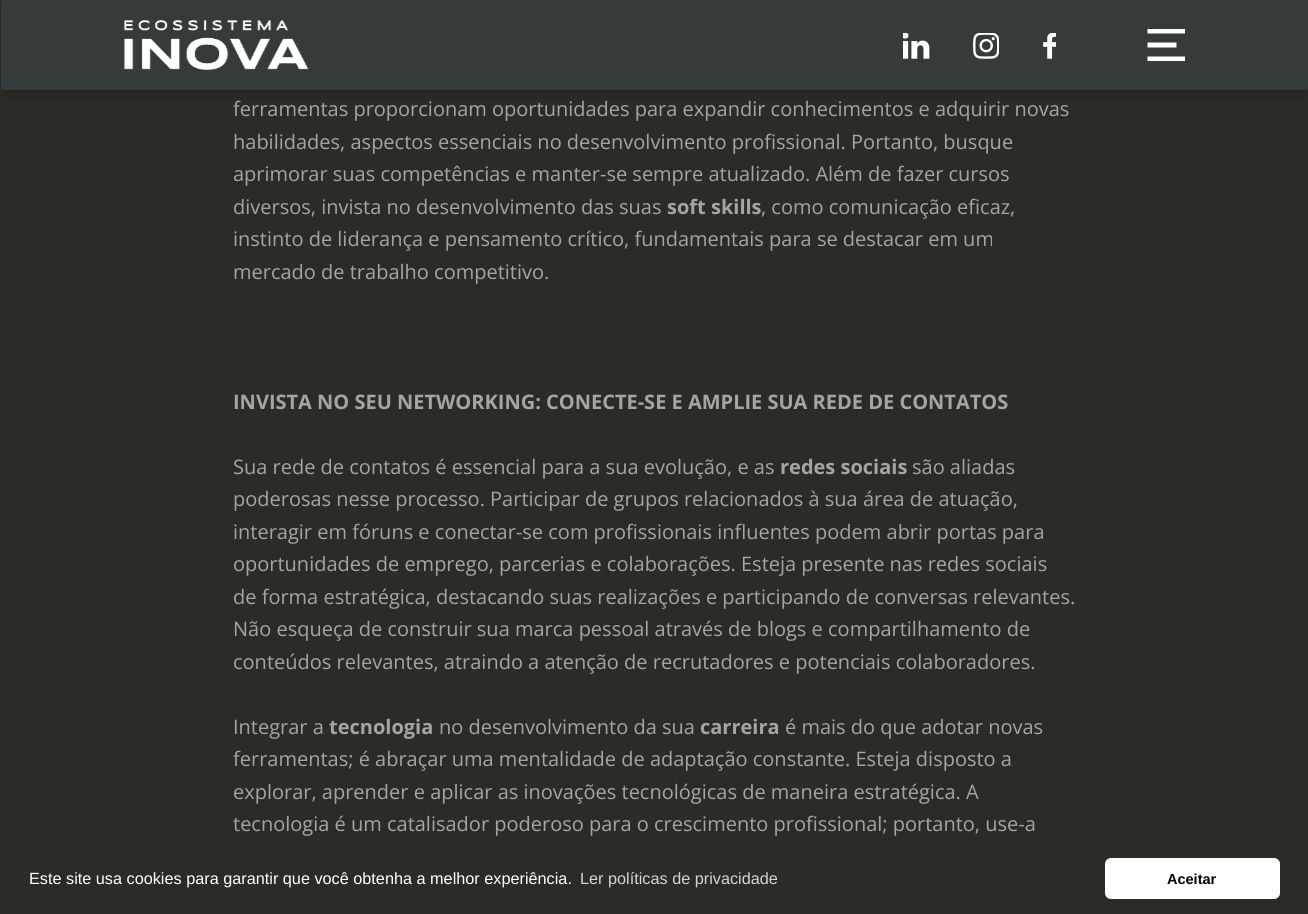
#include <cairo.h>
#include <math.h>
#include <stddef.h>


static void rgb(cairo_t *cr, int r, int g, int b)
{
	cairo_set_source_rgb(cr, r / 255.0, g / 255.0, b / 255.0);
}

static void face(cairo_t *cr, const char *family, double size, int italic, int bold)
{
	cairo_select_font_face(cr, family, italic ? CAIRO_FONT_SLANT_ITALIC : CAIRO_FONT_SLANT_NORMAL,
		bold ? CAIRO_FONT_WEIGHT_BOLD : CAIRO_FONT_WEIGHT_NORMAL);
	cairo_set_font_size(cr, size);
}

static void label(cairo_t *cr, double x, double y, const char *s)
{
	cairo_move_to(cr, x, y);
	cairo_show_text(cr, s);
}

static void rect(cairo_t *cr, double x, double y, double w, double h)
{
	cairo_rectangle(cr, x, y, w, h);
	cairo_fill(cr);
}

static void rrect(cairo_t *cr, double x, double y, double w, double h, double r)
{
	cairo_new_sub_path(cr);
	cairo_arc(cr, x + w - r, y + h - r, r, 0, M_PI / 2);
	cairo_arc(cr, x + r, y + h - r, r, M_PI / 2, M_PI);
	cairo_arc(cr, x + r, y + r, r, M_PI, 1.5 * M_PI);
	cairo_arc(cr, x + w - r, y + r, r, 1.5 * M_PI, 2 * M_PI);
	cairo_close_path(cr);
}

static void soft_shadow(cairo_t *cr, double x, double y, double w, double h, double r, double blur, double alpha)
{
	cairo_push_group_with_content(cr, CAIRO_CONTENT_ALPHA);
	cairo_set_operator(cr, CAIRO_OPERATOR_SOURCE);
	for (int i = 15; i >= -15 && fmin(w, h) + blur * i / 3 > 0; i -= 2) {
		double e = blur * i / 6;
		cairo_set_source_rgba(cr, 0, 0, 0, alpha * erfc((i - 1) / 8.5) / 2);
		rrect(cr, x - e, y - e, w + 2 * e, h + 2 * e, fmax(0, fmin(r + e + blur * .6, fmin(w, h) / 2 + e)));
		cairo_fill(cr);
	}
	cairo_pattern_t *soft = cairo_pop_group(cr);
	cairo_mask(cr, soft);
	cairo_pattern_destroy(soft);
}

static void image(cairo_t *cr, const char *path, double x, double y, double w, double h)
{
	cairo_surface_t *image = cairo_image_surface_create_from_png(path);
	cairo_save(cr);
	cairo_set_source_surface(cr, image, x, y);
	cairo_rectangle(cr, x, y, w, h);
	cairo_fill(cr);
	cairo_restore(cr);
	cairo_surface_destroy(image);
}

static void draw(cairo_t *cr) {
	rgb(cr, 43, 44, 39);
	cairo_paint(cr);
	rgb(cr, 0, 0, 0);
	soft_shadow(cr, 8, 13, 1296, 77, 0, 6, 0.4);
	rgb(cr, 53, 59, 59);
	rect(cr, 1, 0, 1307, 90);
	image(cr, "image0.png", 124, 20, 185, 50);
	image(cr, "image1.png", 903, 33, 27, 26);
	image(cr, "image2.png", 973, 33, 26, 26);
	image(cr, "image3.png", 1043, 33, 13, 26);
	cairo_save(cr);
	cairo_rectangle(cr, 1146, 29, 39, 32);
	cairo_clip(cr);
	rgb(cr, 255, 255, 255);
	cairo_new_path(cr);
	cairo_move_to(cr, 1147.5, 29);
	cairo_line_to(cr, 1147.5, 33.5);
	cairo_line_to(cr, 1185, 33.5);
	cairo_line_to(cr, 1185, 29);
	cairo_close_path(cr);
	cairo_move_to(cr, 1147.5, 42.5);
	cairo_line_to(cr, 1147.5, 47.5);
	cairo_line_to(cr, 1176.5, 47.5);
	cairo_line_to(cr, 1176.5, 42.5);
	cairo_close_path(cr);
	cairo_move_to(cr, 1147.5, 56.5);
	cairo_line_to(cr, 1147.5, 61.5);
	cairo_line_to(cr, 1185, 61.5);
	cairo_line_to(cr, 1185, 56.5);
	cairo_close_path(cr);
	cairo_fill(cr);
	cairo_restore(cr);
	face(cr, "Open Sans", 20, 0, 0);
	rgb(cr, 165, 165, 165);
	label(cr, 233, 116, "ferramentas proporcionam oportunidades para expandir conhecimentos e adquirir novas");
	label(cr, 233, 149, "habilidades, aspectos essenciais no desenvolvimento profissional. Portanto, busque");
	label(cr, 233, 181, "aprimorar suas competências e manter-se sempre atualizado. Além de fazer cursos");
	label(cr, 233, 214, "diversos, invista no desenvolvimento das suas");
	face(cr, "Open Sans", 20, 0, 1);
	label(cr, 667, 214, "soft skills");
	face(cr, "Open Sans", 20, 0, 0);
	label(cr, 761, 214, ", como comunicação eficaz,");
	label(cr, 233, 246, "instinto de liderança e pensamento crítico, fundamentais para se destacar em um");
	label(cr, 233, 279, "mercado de trabalho competitivo.");
	face(cr, "Open Sans", 20, 0, 1);
	label(cr, 233, 409, "INVISTA NO SEU NETWORKING: CONECTE-SE E AMPLIE SUA REDE DE CONTATOS");
	face(cr, "Open Sans", 20, 0, 0);
	label(cr, 233, 474, "Sua rede de contatos é essencial para a sua evolução, e as");
	face(cr, "Open Sans", 20, 0, 1);
	label(cr, 780, 474, "redes sociais");
	face(cr, "Open Sans", 20, 0, 0);
	label(cr, 912, 474, "são aliadas");
	label(cr, 233, 506, "poderosas nesse processo. Participar de grupos relacionados à sua área de atuação,");
	label(cr, 233, 539, "interagir em fóruns e conectar-se com profissionais influentes podem abrir portas para");
	label(cr, 233, 571, "oportunidades de emprego, parcerias e colaborações. Esteja presente nas redes sociais");
	label(cr, 233, 604, "de forma estratégica, destacando suas realizações e participando de conversas relevantes.");
	label(cr, 233, 636, "Não esqueça de construir sua marca pessoal através de blogs e compartilhamento de");
	label(cr, 233, 669, "conteúdos relevantes, atraindo a atenção de recrutadores e potenciais colaboradores.");
	label(cr, 233, 734, "Integrar a");
	face(cr, "Open Sans", 20, 0, 1);
	label(cr, 329, 734, "tecnologia");
	face(cr, "Open Sans", 20, 0, 0);
	label(cr, 439, 734, "no desenvolvimento da sua");
	face(cr, "Open Sans", 20, 0, 1);
	label(cr, 700, 734, "carreira");
	face(cr, "Open Sans", 20, 0, 0);
	label(cr, 785, 734, "é mais do que adotar novas");
	label(cr, 233, 766, "ferramentas; é abraçar uma mentalidade de adaptação constante. Esteja disposto a");
	label(cr, 233, 799, "explorar, aprender e aplicar as inovações tecnológicas de maneira estratégica. A");
	label(cr, 233, 831, "tecnologia é um catalisador poderoso para o crescimento profissional; portanto, use-a");
	face(cr, "Liberation Sans", 16.25, 0, 0);
	rgb(cr, 255, 255, 255);
	label(cr, 29, 884, "Este site usa cookies para garantir que você obtenha a melhor experiência.");
	rgb(cr, 213, 213, 212);
	label(cr, 580, 884, "Ler políticas de privacidade");
	rgb(cr, 255, 255, 255);
	rrect(cr, 1105, 858, 175, 41, 6);
	cairo_fill(cr);
	face(cr, "Liberation Sans", 14.5, 0, 1);
	rgb(cr, 0, 0, 0);
	label(cr, 1167, 884, "Aceitar");
}

int main(void) {
	cairo_surface_t *surface = cairo_image_surface_create(CAIRO_FORMAT_RGB24, 1308, 914);
	cairo_t *cr = cairo_create(surface);
	cairo_font_options_t *options = cairo_font_options_create();
	cairo_font_options_set_hint_metrics(options, CAIRO_HINT_METRICS_OFF);
	cairo_font_options_set_hint_style(options, CAIRO_HINT_STYLE_NONE);
	cairo_set_font_options(cr, options);
	cairo_set_miter_limit(cr, 4);
	draw(cr);
	cairo_surface_write_to_png(surface, "render.png");
	cairo_font_options_destroy(options);
	cairo_destroy(cr);
	cairo_surface_destroy(surface);
	return 0;
}
